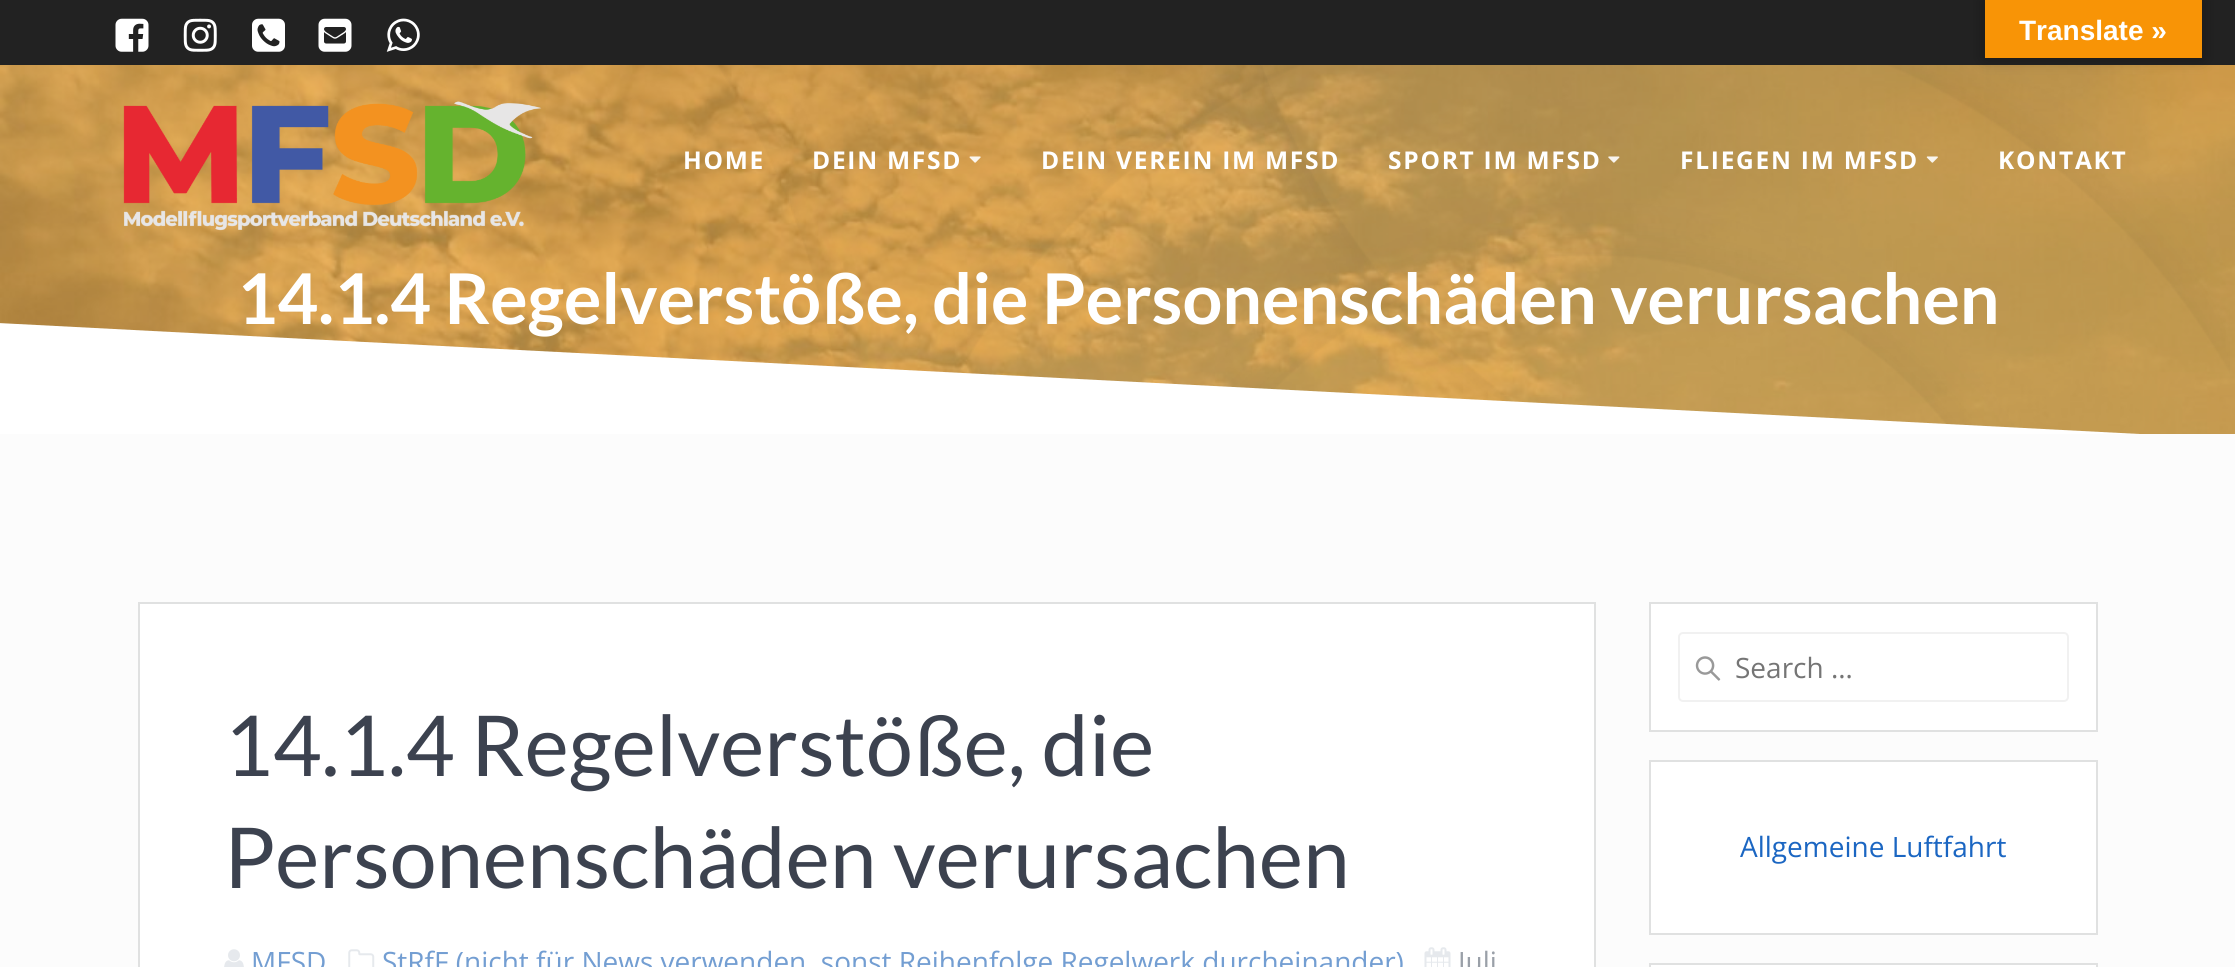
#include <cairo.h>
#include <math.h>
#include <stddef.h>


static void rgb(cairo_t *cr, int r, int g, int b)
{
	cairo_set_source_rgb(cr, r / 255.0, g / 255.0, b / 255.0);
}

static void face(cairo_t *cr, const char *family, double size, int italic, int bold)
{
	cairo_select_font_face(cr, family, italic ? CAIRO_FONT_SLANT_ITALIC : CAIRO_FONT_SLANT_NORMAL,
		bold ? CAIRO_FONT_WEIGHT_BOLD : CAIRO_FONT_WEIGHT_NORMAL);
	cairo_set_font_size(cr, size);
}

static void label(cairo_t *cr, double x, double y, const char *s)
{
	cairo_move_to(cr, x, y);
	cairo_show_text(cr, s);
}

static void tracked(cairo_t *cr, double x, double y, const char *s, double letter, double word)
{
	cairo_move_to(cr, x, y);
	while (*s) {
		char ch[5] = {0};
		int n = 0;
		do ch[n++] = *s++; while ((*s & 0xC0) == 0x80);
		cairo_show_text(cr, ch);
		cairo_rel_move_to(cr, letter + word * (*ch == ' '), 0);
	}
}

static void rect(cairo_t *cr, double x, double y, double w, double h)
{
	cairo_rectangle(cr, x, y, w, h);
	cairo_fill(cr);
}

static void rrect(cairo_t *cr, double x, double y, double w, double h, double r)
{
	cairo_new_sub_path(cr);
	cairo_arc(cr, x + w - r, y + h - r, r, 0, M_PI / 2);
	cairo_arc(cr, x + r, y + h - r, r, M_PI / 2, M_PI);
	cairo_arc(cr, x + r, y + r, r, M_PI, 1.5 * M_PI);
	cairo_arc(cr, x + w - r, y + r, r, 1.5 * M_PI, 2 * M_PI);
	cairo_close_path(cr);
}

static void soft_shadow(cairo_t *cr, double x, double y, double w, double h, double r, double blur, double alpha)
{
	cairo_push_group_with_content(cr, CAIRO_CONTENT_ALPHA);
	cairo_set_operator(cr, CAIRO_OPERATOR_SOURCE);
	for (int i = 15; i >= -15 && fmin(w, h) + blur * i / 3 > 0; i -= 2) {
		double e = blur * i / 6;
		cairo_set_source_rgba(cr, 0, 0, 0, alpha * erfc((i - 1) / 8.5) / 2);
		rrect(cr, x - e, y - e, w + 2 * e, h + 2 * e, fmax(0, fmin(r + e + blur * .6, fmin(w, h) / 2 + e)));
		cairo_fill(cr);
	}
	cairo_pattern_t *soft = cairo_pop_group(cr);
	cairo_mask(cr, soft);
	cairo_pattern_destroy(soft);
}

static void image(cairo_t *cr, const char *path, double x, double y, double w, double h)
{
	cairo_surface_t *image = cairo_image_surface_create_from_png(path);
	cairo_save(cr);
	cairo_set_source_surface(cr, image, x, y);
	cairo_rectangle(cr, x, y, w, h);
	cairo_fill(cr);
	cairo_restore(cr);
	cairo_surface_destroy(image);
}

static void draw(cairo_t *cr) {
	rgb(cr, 255, 255, 255);
	cairo_paint(cr);
	rgb(cr, 34, 34, 34);
	rect(cr, 0, 0, 2235, 65);
	image(cr, "image9.png", 0, 65, 2235, 369);
	image(cr, "image10.png", 718, 65, 1512, 361);
	rgb(cr, 0, 0, 0);
	soft_shadow(cr, 1985, 0, 217, 58, 0, 8, 0.3);
	rgb(cr, 248, 148, 6);
	rect(cr, 1985, 0, 217, 58);
	face(cr, "Liberation Sans", 28, 0, 1);
	rgb(cr, 255, 255, 255);
	label(cr, 2019, 40, "Translate »");
	image(cr, "image0.png", 115, 18, 34, 34);
	image(cr, "image1.png", 183, 18, 34, 34);
	image(cr, "image2.png", 252, 18, 33, 34);
	image(cr, "image3.png", 318, 18, 34, 34);
	image(cr, "image4.png", 386, 18, 34, 34);
	image(cr, "image5.png", 123, 101, 419, 130);
	face(cr, "Open Sans", 24.5, 0, 1);
	tracked(cr, 683, 169, "HOME", 1.75, 0);
	tracked(cr, 812, 169, "DEIN MFSD", 1.75, 0);
	image(cr, "image6.png", 969, 156, 12, 7);
	tracked(cr, 1041, 169, "DEIN VEREIN IM MFSD", 1.75, 0);
	tracked(cr, 1388, 169, "SPORT IM MFSD", 1.75, 0);
	image(cr, "image7.png", 1608, 156, 12, 7);
	tracked(cr, 1680, 169, "FLIEGEN IM MFSD", 1.75, 0);
	image(cr, "image8.png", 1926, 156, 12, 7);
	tracked(cr, 1998, 169, "KONTAKT", 1.75, 0);
	cairo_new_path(cr);
	cairo_move_to(cr, 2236, 439);
	cairo_line_to(cr, -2, 439);
	cairo_line_to(cr, -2, 323);
	cairo_close_path(cr);
	cairo_fill(cr);
	face(cr, "Lato", 70, 0, 1);
	label(cr, 237, 324, "14.1.4 Regelverstöße, die Personenschäden verursachen");
	rgb(cr, 252, 252, 252);
	rect(cr, 0, 434, 2235, 533);
	rgb(cr, 255, 255, 255);
	cairo_rectangle(cr, 139, 603, 1456, 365);
	cairo_fill_preserve(cr);
	rgb(cr, 224, 225, 225);
	cairo_stroke(cr);
	face(cr, "Lato", 84, 0, 0);
	rgb(cr, 60, 66, 79);
	label(cr, 224, 776, "14.1.4 Regelverstöße, die");
	label(cr, 224, 888, "Personenschäden verursachen");
	image(cr, "image11.png", 224, 949, 20, 18);
	face(cr, "Open Sans", 28, 0, 0);
	rgb(cr, 115, 158, 210);
	label(cr, 251, 972, "MFSD");
	image(cr, "image12.png", 348, 949, 27, 18);
	label(cr, 382, 972, "StRfF (nicht für News verwenden, sonst Reihenfolge Regelwerk durcheinander)");
	image(cr, "image13.png", 1424, 947, 27, 20);
	rgb(cr, 154, 160, 168);
	label(cr, 1458, 972, "Juli");
	rgb(cr, 255, 255, 255);
	cairo_rectangle(cr, 1650, 603, 447, 128);
	cairo_fill_preserve(cr);
	rgb(cr, 224, 225, 225);
	cairo_stroke(cr);
	image(cr, "image14.png", 1695, 656, 26, 25);
	rrect(cr, 1679, 633, 389, 68, 4);
	rgb(cr, 241, 241, 241);
	cairo_stroke(cr);
	rgb(cr, 117, 117, 117);
	label(cr, 1735, 678, "Search …");
	rgb(cr, 255, 255, 255);
	cairo_rectangle(cr, 1650, 761, 447, 173);
	cairo_fill_preserve(cr);
	rgb(cr, 224, 225, 225);
	cairo_stroke(cr);
	rgb(cr, 27, 102, 194);
	label(cr, 1740, 857, "Allgemeine Luftfahrt");
	rgb(cr, 255, 255, 255);
	cairo_rectangle(cr, 1650, 964, 447, 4);
	cairo_fill_preserve(cr);
	rgb(cr, 224, 225, 225);
	cairo_stroke(cr);
}

int main(void) {
	cairo_surface_t *surface = cairo_image_surface_create(CAIRO_FORMAT_RGB24, 2235, 967);
	cairo_t *cr = cairo_create(surface);
	cairo_font_options_t *options = cairo_font_options_create();
	cairo_font_options_set_hint_metrics(options, CAIRO_HINT_METRICS_OFF);
	cairo_font_options_set_hint_style(options, CAIRO_HINT_STYLE_NONE);
	cairo_set_font_options(cr, options);
	cairo_set_miter_limit(cr, 4);
	draw(cr);
	cairo_surface_write_to_png(surface, "render.png");
	cairo_font_options_destroy(options);
	cairo_destroy(cr);
	cairo_surface_destroy(surface);
	return 0;
}
